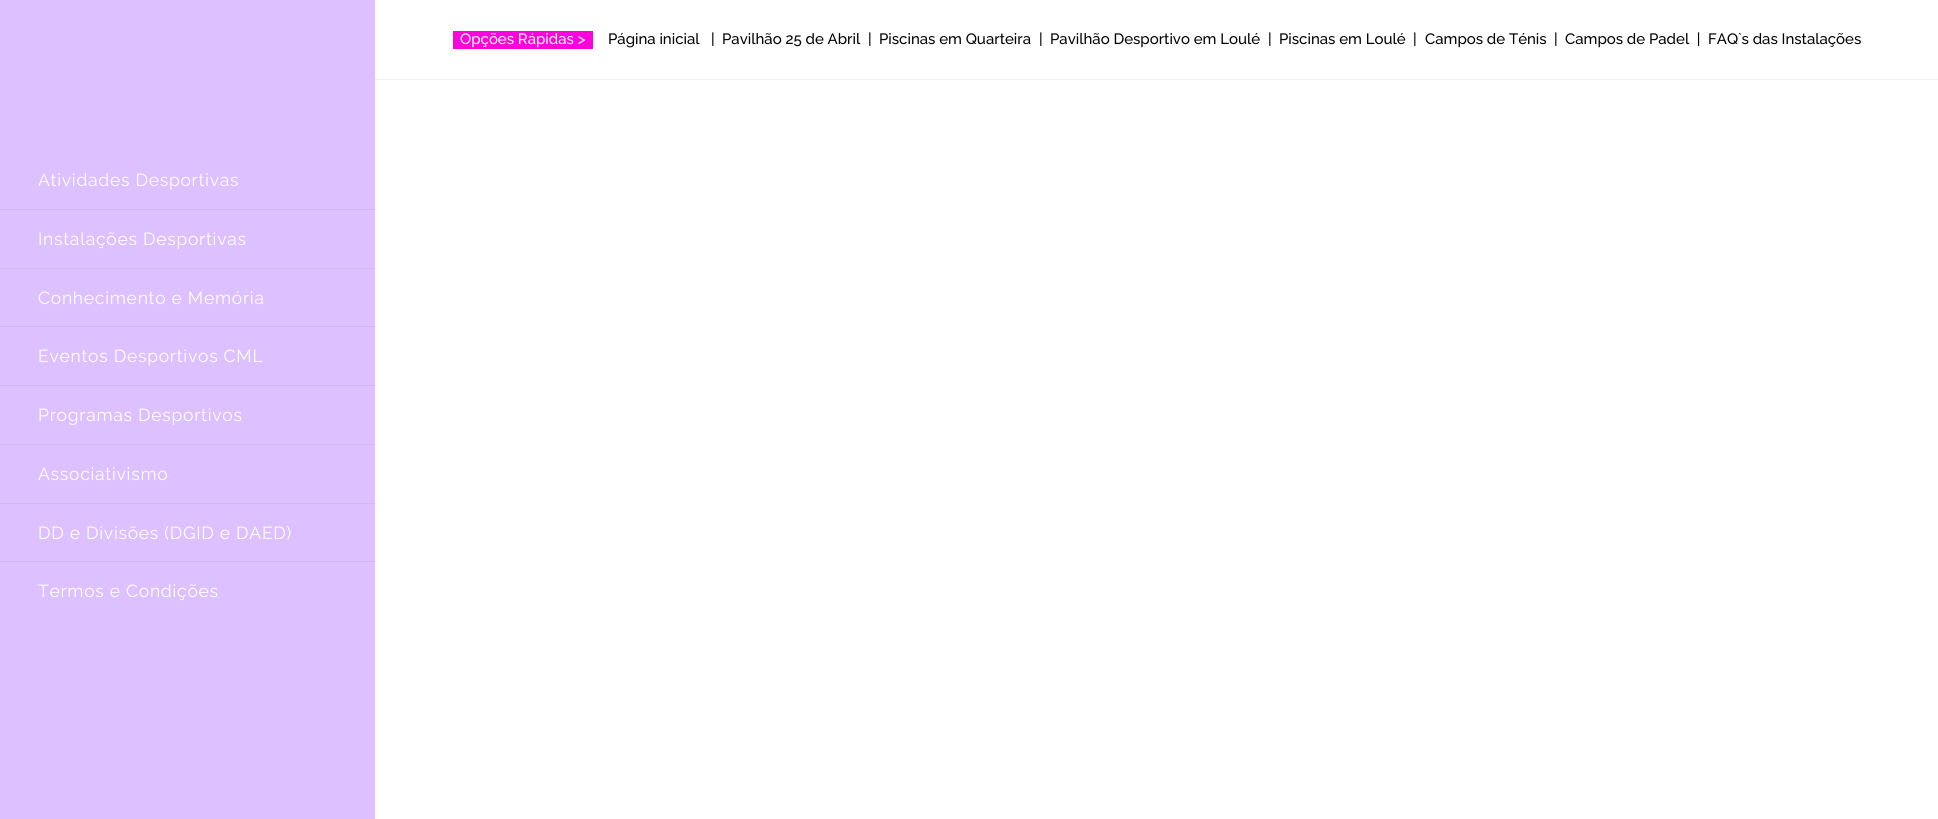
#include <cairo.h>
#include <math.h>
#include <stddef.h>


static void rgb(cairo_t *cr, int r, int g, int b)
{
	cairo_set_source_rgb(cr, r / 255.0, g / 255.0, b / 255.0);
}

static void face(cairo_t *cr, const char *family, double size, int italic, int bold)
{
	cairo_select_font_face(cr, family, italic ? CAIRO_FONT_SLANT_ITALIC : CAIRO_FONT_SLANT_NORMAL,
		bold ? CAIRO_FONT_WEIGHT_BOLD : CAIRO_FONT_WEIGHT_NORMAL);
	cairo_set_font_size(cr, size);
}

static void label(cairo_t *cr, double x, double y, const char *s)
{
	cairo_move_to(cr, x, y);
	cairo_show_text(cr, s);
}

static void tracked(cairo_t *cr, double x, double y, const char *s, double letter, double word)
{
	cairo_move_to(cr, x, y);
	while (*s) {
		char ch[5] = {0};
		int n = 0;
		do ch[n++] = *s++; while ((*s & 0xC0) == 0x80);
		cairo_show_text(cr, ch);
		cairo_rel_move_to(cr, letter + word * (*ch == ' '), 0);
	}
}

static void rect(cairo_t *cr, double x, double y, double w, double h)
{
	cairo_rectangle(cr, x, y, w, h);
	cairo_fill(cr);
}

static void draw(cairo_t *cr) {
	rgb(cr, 255, 255, 255);
	cairo_paint(cr);
	rgb(cr, 241, 241, 241);
	rect(cr, 375, 79, 1563, 1);
	rgb(cr, 252, 3, 219);
	rect(cr, 453, 31, 140, 18);
	face(cr, "Raleway Medium", 15, 0, 0);
	rgb(cr, 255, 255, 255);
	label(cr, 460, 44, "Opções Rápidas >");
	rgb(cr, 0, 0, 0);
	label(cr, 608, 44, "Página inicial");
	label(cr, 711, 44, "|");
	label(cr, 722, 44, "Pavilhão 25 de Abril");
	label(cr, 868, 44, "|");
	label(cr, 879, 44, "Piscinas em Quarteira");
	label(cr, 1039, 44, "|");
	label(cr, 1050, 44, "Pavilhão Desportivo em Loulé");
	label(cr, 1268, 44, "|");
	label(cr, 1279, 44, "Piscinas em Loulé");
	label(cr, 1413, 44, "|");
	label(cr, 1425, 44, "Campos de Ténis");
	label(cr, 1554, 44, "|");
	label(cr, 1565, 44, "Campos de Padel  |");
	label(cr, 1708, 44, "FAQ`s das Instalações");
	rgb(cr, 221, 192, 255);
	rect(cr, 0, 0, 375, 819);
	rgb(cr, 210, 182, 242);
	rect(cr, 0, 209, 375, 1);
	face(cr, "Raleway", 17.5, 0, 0);
	rgb(cr, 255, 255, 255);
	tracked(cr, 38, 186, "Atividades Desportivas", 0.75, 0);
	rgb(cr, 210, 182, 242);
	rect(cr, 0, 268, 375, 1);
	rgb(cr, 255, 255, 255);
	tracked(cr, 38, 245, "Instalações Desportivas", 0.75, 0);
	rgb(cr, 210, 182, 242);
	rect(cr, 0, 326, 375, 1);
	rgb(cr, 255, 255, 255);
	tracked(cr, 38, 304, "Conhecimento e Memória", 0.75, 0);
	rgb(cr, 210, 182, 242);
	rect(cr, 0, 385, 375, 1);
	rgb(cr, 255, 255, 255);
	tracked(cr, 38, 362, "Eventos Desportivos CML", 0.75, 0);
	rgb(cr, 210, 182, 242);
	rect(cr, 0, 444, 375, 1);
	rgb(cr, 255, 255, 255);
	tracked(cr, 38, 421, "Programas Desportivos", 0.75, 0);
	rgb(cr, 210, 182, 242);
	rect(cr, 0, 503, 375, 1);
	rgb(cr, 255, 255, 255);
	tracked(cr, 38, 480, "Associativismo", 0.75, 0);
	rgb(cr, 210, 182, 242);
	rect(cr, 0, 561, 375, 1);
	rgb(cr, 255, 255, 255);
	tracked(cr, 38, 539, "DD e Divisões (DGID e DAED)", 0.75, 0);
	tracked(cr, 38, 597, "Termos e Condições", 0.75, 0);
}

int main(void) {
	cairo_surface_t *surface = cairo_image_surface_create(CAIRO_FORMAT_RGB24, 1938, 819);
	cairo_t *cr = cairo_create(surface);
	cairo_font_options_t *options = cairo_font_options_create();
	cairo_font_options_set_hint_metrics(options, CAIRO_HINT_METRICS_OFF);
	cairo_font_options_set_hint_style(options, CAIRO_HINT_STYLE_NONE);
	cairo_set_font_options(cr, options);
	cairo_set_miter_limit(cr, 4);
	draw(cr);
	cairo_surface_write_to_png(surface, "render.png");
	cairo_font_options_destroy(options);
	cairo_destroy(cr);
	cairo_surface_destroy(surface);
	return 0;
}
